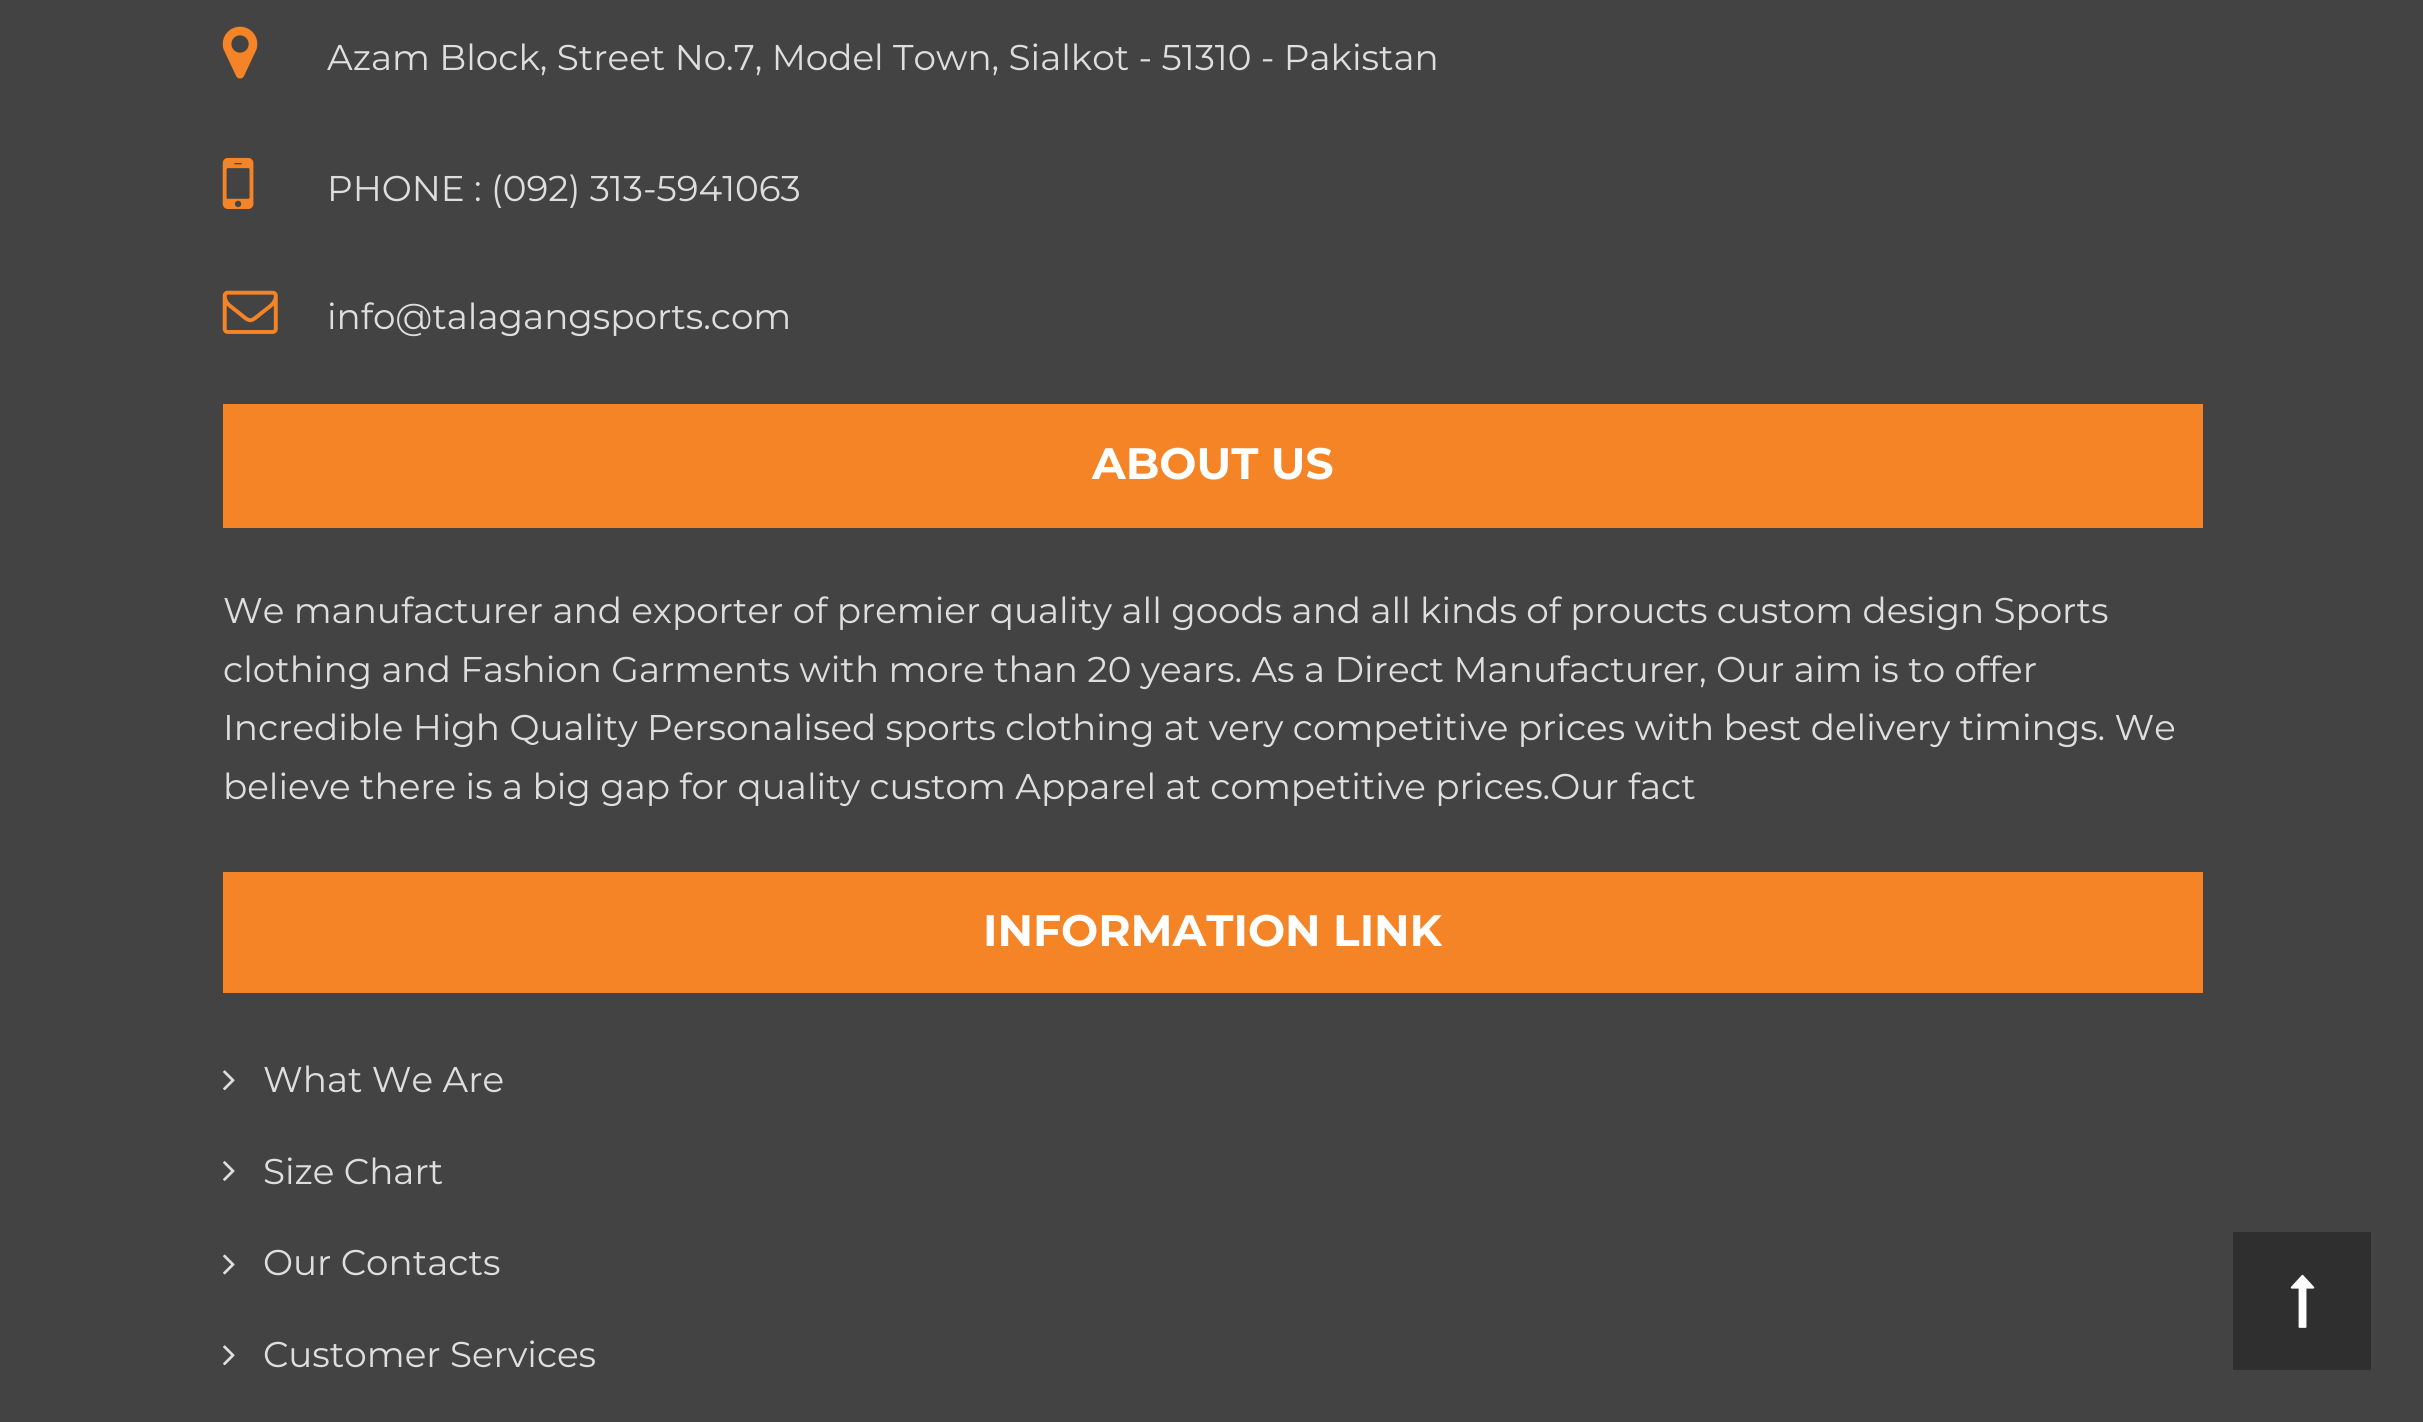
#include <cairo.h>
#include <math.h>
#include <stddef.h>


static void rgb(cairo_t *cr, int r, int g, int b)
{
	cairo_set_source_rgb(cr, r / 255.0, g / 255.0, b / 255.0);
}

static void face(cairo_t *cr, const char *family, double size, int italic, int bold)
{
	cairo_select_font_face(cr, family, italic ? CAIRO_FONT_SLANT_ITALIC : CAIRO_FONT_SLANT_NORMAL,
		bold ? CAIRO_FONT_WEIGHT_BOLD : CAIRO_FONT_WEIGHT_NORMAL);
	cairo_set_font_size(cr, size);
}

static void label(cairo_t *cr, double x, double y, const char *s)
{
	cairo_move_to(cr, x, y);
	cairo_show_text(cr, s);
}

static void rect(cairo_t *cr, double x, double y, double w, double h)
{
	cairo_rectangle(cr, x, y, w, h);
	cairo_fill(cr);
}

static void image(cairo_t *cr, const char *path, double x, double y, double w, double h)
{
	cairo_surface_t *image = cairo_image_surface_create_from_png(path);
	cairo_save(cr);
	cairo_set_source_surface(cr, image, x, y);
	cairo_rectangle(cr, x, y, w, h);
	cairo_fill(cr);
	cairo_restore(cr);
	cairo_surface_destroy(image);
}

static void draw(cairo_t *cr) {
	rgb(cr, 67, 67, 67);
	cairo_paint(cr);
	image(cr, "image0.png", 222, 26, 36, 53);
	face(cr, "Montserrat", 35.75, 0, 0);
	rgb(cr, 222, 222, 222);
	label(cr, 327, 70, "Azam Block, Street No.7, Model Town, Sialkot - 51310 - Pakistan");
	image(cr, "image1.png", 222, 157, 32, 52);
	label(cr, 327, 201, "PHONE : (092) 313-5941063");
	image(cr, "image2.png", 222, 290, 56, 44);
	label(cr, 327, 329, "info@talagangsports.com");
	rgb(cr, 245, 132, 38);
	rect(cr, 223, 404, 1980, 124);
	face(cr, "Montserrat", 44, 0, 1);
	rgb(cr, 255, 255, 255);
	label(cr, 1092, 479, "ABOUT US");
	face(cr, "Montserrat", 35.75, 0, 0);
	rgb(cr, 222, 222, 222);
	label(cr, 223, 623, "We manufacturer and exporter of premier quality all goods and all kinds of proucts custom design Sports");
	label(cr, 223, 682, "clothing and Fashion Garments with more than 20 years. As a Direct Manufacturer, Our aim is to offer");
	label(cr, 223, 740, "Incredible High Quality Personalised sports clothing at very competitive prices with best delivery timings. We");
	label(cr, 223, 799, "believe there is a big gap for quality custom Apparel at competitive prices.Our fact");
	rgb(cr, 245, 132, 38);
	rect(cr, 223, 872, 1980, 121);
	face(cr, "Montserrat", 44, 0, 1);
	rgb(cr, 255, 255, 255);
	label(cr, 983, 946, "INFORMATION LINK");
	image(cr, "image3.png", 223, 1070, 12, 21);
	face(cr, "Montserrat", 35.75, 0, 0);
	rgb(cr, 222, 222, 222);
	label(cr, 263, 1092, "What We Are");
	image(cr, "image4.png", 223, 1161, 12, 20);
	label(cr, 263, 1184, "Size Chart");
	image(cr, "image5.png", 223, 1254, 12, 21);
	label(cr, 263, 1275, "Our Contacts");
	image(cr, "image3.png", 223, 1345, 12, 21);
	label(cr, 263, 1367, "Customer Services");
	cairo_set_source_rgba(cr, 0, 0, 0, 0.3);
	rect(cr, 2233, 1232, 138, 138);
	image(cr, "image6.png", 2290, 1274, 25, 54);
}

int main(void) {
	cairo_surface_t *surface = cairo_image_surface_create(CAIRO_FORMAT_RGB24, 2423, 1422);
	cairo_t *cr = cairo_create(surface);
	cairo_font_options_t *options = cairo_font_options_create();
	cairo_font_options_set_hint_metrics(options, CAIRO_HINT_METRICS_OFF);
	cairo_font_options_set_hint_style(options, CAIRO_HINT_STYLE_NONE);
	cairo_set_font_options(cr, options);
	cairo_set_miter_limit(cr, 4);
	draw(cr);
	cairo_surface_write_to_png(surface, "render.png");
	cairo_font_options_destroy(options);
	cairo_destroy(cr);
	cairo_surface_destroy(surface);
	return 0;
}
